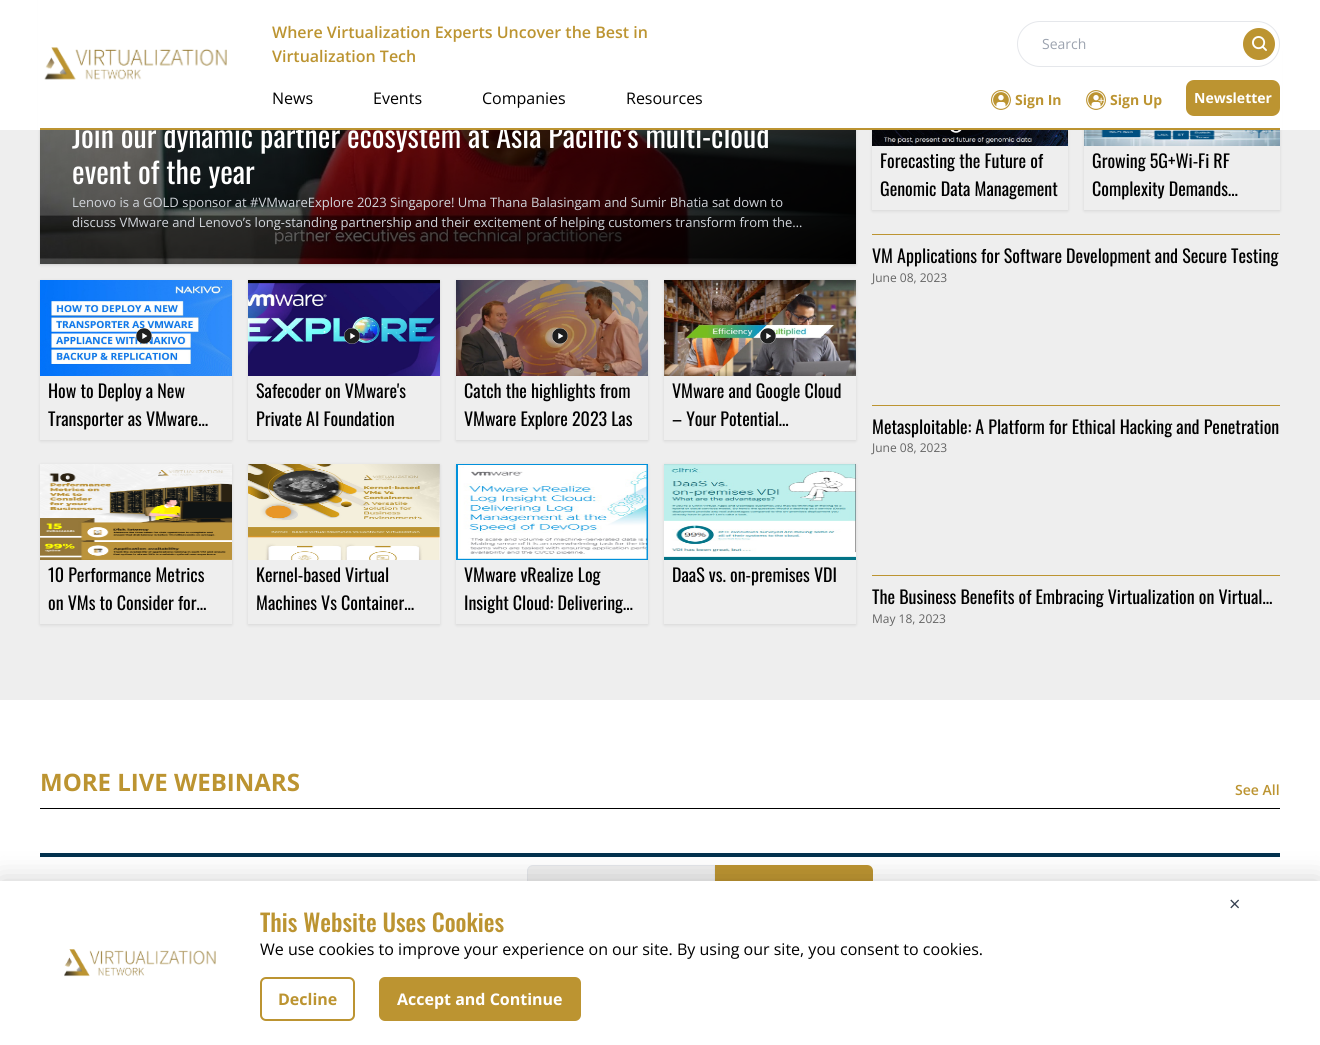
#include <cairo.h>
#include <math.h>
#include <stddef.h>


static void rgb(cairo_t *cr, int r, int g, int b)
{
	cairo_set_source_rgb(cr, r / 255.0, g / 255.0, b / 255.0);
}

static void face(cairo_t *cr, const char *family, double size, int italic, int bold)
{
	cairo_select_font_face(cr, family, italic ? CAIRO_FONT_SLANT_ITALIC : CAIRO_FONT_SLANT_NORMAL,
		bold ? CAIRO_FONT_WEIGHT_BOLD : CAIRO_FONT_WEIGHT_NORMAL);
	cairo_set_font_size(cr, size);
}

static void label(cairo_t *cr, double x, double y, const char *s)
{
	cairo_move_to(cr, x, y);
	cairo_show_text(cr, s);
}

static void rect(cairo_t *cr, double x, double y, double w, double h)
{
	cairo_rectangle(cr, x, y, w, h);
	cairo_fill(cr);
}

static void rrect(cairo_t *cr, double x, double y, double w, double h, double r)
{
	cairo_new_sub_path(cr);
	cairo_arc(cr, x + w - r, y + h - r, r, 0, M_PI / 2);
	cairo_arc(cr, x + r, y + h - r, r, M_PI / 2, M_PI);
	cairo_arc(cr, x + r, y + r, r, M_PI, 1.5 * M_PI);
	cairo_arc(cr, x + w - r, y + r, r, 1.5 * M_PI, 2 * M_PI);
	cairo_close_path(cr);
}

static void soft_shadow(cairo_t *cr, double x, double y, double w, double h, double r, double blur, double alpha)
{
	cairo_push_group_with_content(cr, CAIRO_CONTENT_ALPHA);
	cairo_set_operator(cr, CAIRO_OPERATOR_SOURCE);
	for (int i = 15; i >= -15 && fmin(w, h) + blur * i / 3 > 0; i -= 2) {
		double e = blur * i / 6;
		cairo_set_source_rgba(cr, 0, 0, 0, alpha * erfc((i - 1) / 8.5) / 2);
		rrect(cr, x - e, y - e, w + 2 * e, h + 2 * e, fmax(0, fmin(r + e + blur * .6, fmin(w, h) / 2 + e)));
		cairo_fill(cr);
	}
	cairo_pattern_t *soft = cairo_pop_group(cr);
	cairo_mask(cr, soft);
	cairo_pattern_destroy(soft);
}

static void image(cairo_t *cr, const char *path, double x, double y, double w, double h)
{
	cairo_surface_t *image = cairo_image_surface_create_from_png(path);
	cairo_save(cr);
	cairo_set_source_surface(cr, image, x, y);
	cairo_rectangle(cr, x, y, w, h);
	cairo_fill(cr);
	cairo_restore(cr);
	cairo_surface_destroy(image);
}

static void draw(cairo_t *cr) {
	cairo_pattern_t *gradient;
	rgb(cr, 255, 255, 255);
	cairo_paint(cr);
	rgb(cr, 238, 238, 238);
	rect(cr, 0, 130, 1320, 570);
	rgb(cr, 0, 0, 0);
	soft_shadow(cr, 41, -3, 814, 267, 0, 1, 0.1);
	soft_shadow(cr, 40, -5, 816, 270, 0, 1.5, 0.1);
	cairo_save(cr);
	cairo_set_fill_rule(cr, CAIRO_FILL_RULE_EVEN_ODD);
	cairo_new_path(cr);
	cairo_move_to(cr, 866, 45);
	cairo_line_to(cr, 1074, 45);
	cairo_line_to(cr, 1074, 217);
	cairo_line_to(cr, 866, 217);
	cairo_close_path(cr);
	cairo_move_to(cr, 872, 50);
	cairo_line_to(cr, 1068, 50);
	cairo_line_to(cr, 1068, 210);
	cairo_line_to(cr, 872, 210);
	cairo_close_path(cr);
	cairo_clip(cr);
	soft_shadow(cr, 872, 51, 196, 160, 0, 1.5, 0.1);
	cairo_restore(cr);
	cairo_save(cr);
	cairo_set_fill_rule(cr, CAIRO_FILL_RULE_EVEN_ODD);
	cairo_new_path(cr);
	cairo_move_to(cr, 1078, 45);
	cairo_line_to(cr, 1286, 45);
	cairo_line_to(cr, 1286, 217);
	cairo_line_to(cr, 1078, 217);
	cairo_close_path(cr);
	cairo_move_to(cr, 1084, 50);
	cairo_line_to(cr, 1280, 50);
	cairo_line_to(cr, 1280, 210);
	cairo_line_to(cr, 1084, 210);
	cairo_close_path(cr);
	cairo_clip(cr);
	soft_shadow(cr, 1084, 51, 196, 160, 0, 1.5, 0.1);
	cairo_restore(cr);
	rgb(cr, 255, 255, 255);
	rect(cr, 38, 0, 1244, 130);
	image(cr, "image4.png", 40, 130, 816, 134);
	gradient = cairo_pattern_create_linear(291, -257, 605, 387);
	cairo_pattern_add_color_stop_rgba(gradient, 0, 0, 0, 0, 0);
	cairo_pattern_add_color_stop_rgba(gradient, 1, 0, 0, 0, 1);
	cairo_set_source(cr, gradient);
	cairo_pattern_destroy(gradient);
	rect(cr, 40, 130, 816, 134);
	face(cr, "Oswald", 30, 0, 0);
	rgb(cr, 255, 255, 255);
	label(cr, 72, 148, "Join our dynamic partner ecosystem at Asia Pacific’s multi-cloud");
	rgb(cr, 188, 148, 49);
	rect(cr, 40, 128, 1240, 2);
	image(cr, "image0.png", 44, 47, 183, 33);
	face(cr, "Open Sans SemiBold", 16, 0, 0);
	label(cr, 272, 38, "Where Virtualization Experts Uncover the Best in");
	label(cr, 272, 62, "Virtualization Tech");
	rrect(cr, 1017.5, 21.5, 262, 45, 22.5);
	rgb(cr, 229, 231, 235);
	cairo_set_line_width(cr, 1);
	cairo_stroke(cr);
	face(cr, "Open Sans", 14, 0, 0);
	rgb(cr, 156, 163, 175);
	label(cr, 1042, 49, "Search");
	image(cr, "image1.png", 1243, 28, 32, 32);
	face(cr, "Open Sans", 16, 0, 0);
	rgb(cr, 0, 0, 0);
	label(cr, 272, 104, "News");
	label(cr, 373, 104, "Events");
	label(cr, 482, 104, "Companies");
	label(cr, 626, 104, "Resources");
	image(cr, "image2.png", 991, 90, 20, 20);
	face(cr, "Open Sans", 14, 0, 1);
	rgb(cr, 188, 148, 49);
	label(cr, 1015, 105, "Sign In");
	image(cr, "image3.png", 1086, 90, 20, 20);
	label(cr, 1110, 105, "Sign Up");
	rrect(cr, 1186, 80, 94, 36, 8);
	cairo_fill(cr);
	rgb(cr, 255, 255, 255);
	label(cr, 1194, 103, "Newsletter");
	face(cr, "Oswald", 30, 0, 0);
	label(cr, 72, 184, "event of the year");
	face(cr, "Open Sans", 13, 0, 0);
	rgb(cr, 209, 213, 219);
	label(cr, 72, 207, "Lenovo is a GOLD sponsor at #VMwareExplore 2023 Singapore! Uma Thana Balasingam and Sumir Bhatia sat down to");
	label(cr, 72, 227, "discuss VMware and Lenovo’s long-standing partnership and their excitement of helping customers transform from the…");
	cairo_save(cr);
	cairo_set_fill_rule(cr, CAIRO_FILL_RULE_EVEN_ODD);
	cairo_new_path(cr);
	cairo_move_to(cr, 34, 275);
	cairo_line_to(cr, 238, 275);
	cairo_line_to(cr, 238, 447);
	cairo_line_to(cr, 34, 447);
	cairo_close_path(cr);
	cairo_move_to(cr, 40, 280);
	cairo_line_to(cr, 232, 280);
	cairo_line_to(cr, 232, 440);
	cairo_line_to(cr, 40, 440);
	cairo_close_path(cr);
	cairo_clip(cr);
	rgb(cr, 0, 0, 0);
	soft_shadow(cr, 40, 281, 192, 160, 0, 1.5, 0.1);
	cairo_restore(cr);
	image(cr, "image5.png", 40, 280, 192, 96);
	image(cr, "image6.png", 136, 328, 16, 16);
	face(cr, "Oswald", 18, 0, 0);
	rgb(cr, 0, 0, 0);
	label(cr, 48, 398, "How to Deploy a New");
	label(cr, 48, 426, "Transporter as VMware…");
	cairo_save(cr);
	cairo_set_fill_rule(cr, CAIRO_FILL_RULE_EVEN_ODD);
	cairo_new_path(cr);
	cairo_move_to(cr, 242, 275);
	cairo_line_to(cr, 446, 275);
	cairo_line_to(cr, 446, 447);
	cairo_line_to(cr, 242, 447);
	cairo_close_path(cr);
	cairo_move_to(cr, 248, 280);
	cairo_line_to(cr, 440, 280);
	cairo_line_to(cr, 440, 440);
	cairo_line_to(cr, 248, 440);
	cairo_close_path(cr);
	cairo_clip(cr);
	rgb(cr, 0, 0, 0);
	soft_shadow(cr, 248, 281, 192, 160, 0, 1.5, 0.1);
	cairo_restore(cr);
	image(cr, "image7.png", 248, 280, 192, 96);
	image(cr, "image8.png", 344, 328, 16, 16);
	label(cr, 256, 398, "Safecoder on VMware's");
	label(cr, 256, 426, "Private AI Foundation");
	cairo_save(cr);
	cairo_set_fill_rule(cr, CAIRO_FILL_RULE_EVEN_ODD);
	cairo_new_path(cr);
	cairo_move_to(cr, 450, 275);
	cairo_line_to(cr, 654, 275);
	cairo_line_to(cr, 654, 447);
	cairo_line_to(cr, 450, 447);
	cairo_close_path(cr);
	cairo_move_to(cr, 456, 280);
	cairo_line_to(cr, 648, 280);
	cairo_line_to(cr, 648, 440);
	cairo_line_to(cr, 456, 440);
	cairo_close_path(cr);
	cairo_clip(cr);
	rgb(cr, 0, 0, 0);
	soft_shadow(cr, 456, 281, 192, 160, 0, 1.5, 0.1);
	cairo_restore(cr);
	image(cr, "image9.png", 456, 280, 192, 96);
	image(cr, "image10.png", 552, 328, 16, 16);
	label(cr, 464, 398, "Catch the highlights from");
	label(cr, 464, 426, "VMware Explore 2023 Las");
	cairo_save(cr);
	cairo_set_fill_rule(cr, CAIRO_FILL_RULE_EVEN_ODD);
	cairo_new_path(cr);
	cairo_move_to(cr, 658, 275);
	cairo_line_to(cr, 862, 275);
	cairo_line_to(cr, 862, 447);
	cairo_line_to(cr, 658, 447);
	cairo_close_path(cr);
	cairo_move_to(cr, 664, 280);
	cairo_line_to(cr, 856, 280);
	cairo_line_to(cr, 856, 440);
	cairo_line_to(cr, 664, 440);
	cairo_close_path(cr);
	cairo_clip(cr);
	rgb(cr, 0, 0, 0);
	soft_shadow(cr, 664, 281, 192, 160, 0, 1.5, 0.1);
	cairo_restore(cr);
	image(cr, "image11.png", 664, 280, 192, 96);
	image(cr, "image12.png", 760, 328, 16, 16);
	label(cr, 672, 398, "VMware and Google Cloud");
	label(cr, 672, 426, "– Your Potential…");
	cairo_save(cr);
	cairo_set_fill_rule(cr, CAIRO_FILL_RULE_EVEN_ODD);
	cairo_new_path(cr);
	cairo_move_to(cr, 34, 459);
	cairo_line_to(cr, 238, 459);
	cairo_line_to(cr, 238, 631);
	cairo_line_to(cr, 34, 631);
	cairo_close_path(cr);
	cairo_move_to(cr, 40, 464);
	cairo_line_to(cr, 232, 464);
	cairo_line_to(cr, 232, 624);
	cairo_line_to(cr, 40, 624);
	cairo_close_path(cr);
	cairo_clip(cr);
	rgb(cr, 0, 0, 0);
	soft_shadow(cr, 40, 465, 192, 160, 0, 1.5, 0.1);
	cairo_restore(cr);
	image(cr, "image13.png", 40, 464, 192, 96);
	label(cr, 48, 582, "10 Performance Metrics");
	label(cr, 48, 610, "on VMs to Consider for…");
	cairo_save(cr);
	cairo_set_fill_rule(cr, CAIRO_FILL_RULE_EVEN_ODD);
	cairo_new_path(cr);
	cairo_move_to(cr, 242, 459);
	cairo_line_to(cr, 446, 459);
	cairo_line_to(cr, 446, 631);
	cairo_line_to(cr, 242, 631);
	cairo_close_path(cr);
	cairo_move_to(cr, 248, 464);
	cairo_line_to(cr, 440, 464);
	cairo_line_to(cr, 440, 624);
	cairo_line_to(cr, 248, 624);
	cairo_close_path(cr);
	cairo_clip(cr);
	rgb(cr, 0, 0, 0);
	soft_shadow(cr, 248, 465, 192, 160, 0, 1.5, 0.1);
	cairo_restore(cr);
	image(cr, "image14.png", 248, 464, 192, 96);
	label(cr, 256, 582, "Kernel-based Virtual");
	label(cr, 256, 610, "Machines Vs Container…");
	cairo_save(cr);
	cairo_set_fill_rule(cr, CAIRO_FILL_RULE_EVEN_ODD);
	cairo_new_path(cr);
	cairo_move_to(cr, 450, 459);
	cairo_line_to(cr, 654, 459);
	cairo_line_to(cr, 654, 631);
	cairo_line_to(cr, 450, 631);
	cairo_close_path(cr);
	cairo_move_to(cr, 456, 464);
	cairo_line_to(cr, 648, 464);
	cairo_line_to(cr, 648, 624);
	cairo_line_to(cr, 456, 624);
	cairo_close_path(cr);
	cairo_clip(cr);
	rgb(cr, 0, 0, 0);
	soft_shadow(cr, 456, 465, 192, 160, 0, 1.5, 0.1);
	cairo_restore(cr);
	image(cr, "image15.png", 456, 464, 192, 96);
	label(cr, 464, 582, "VMware vRealize Log");
	label(cr, 464, 610, "Insight Cloud: Delivering…");
	cairo_save(cr);
	cairo_set_fill_rule(cr, CAIRO_FILL_RULE_EVEN_ODD);
	cairo_new_path(cr);
	cairo_move_to(cr, 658, 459);
	cairo_line_to(cr, 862, 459);
	cairo_line_to(cr, 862, 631);
	cairo_line_to(cr, 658, 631);
	cairo_close_path(cr);
	cairo_move_to(cr, 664, 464);
	cairo_line_to(cr, 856, 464);
	cairo_line_to(cr, 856, 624);
	cairo_line_to(cr, 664, 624);
	cairo_close_path(cr);
	cairo_clip(cr);
	rgb(cr, 0, 0, 0);
	soft_shadow(cr, 664, 465, 192, 160, 0, 1.5, 0.1);
	cairo_restore(cr);
	image(cr, "image16.png", 664, 464, 192, 96);
	label(cr, 672, 582, "DaaS vs. on-premises VDI");
	image(cr, "image17.png", 872, 130, 196, 16);
	label(cr, 880, 168, "Forecasting the Future of");
	label(cr, 880, 196, "Genomic Data Management");
	image(cr, "image18.png", 1084, 130, 196, 16);
	label(cr, 1092, 168, "Growing 5G+Wi-Fi RF");
	label(cr, 1092, 196, "Complexity Demands…");
	rgb(cr, 188, 148, 49);
	rect(cr, 872, 234, 408, 1);
	rgb(cr, 0, 0, 0);
	label(cr, 872, 263, "VM Applications for Software Development and Secure Testing");
	face(cr, "Open Sans", 12, 0, 0);
	rgb(cr, 100, 100, 100);
	label(cr, 872, 282, "June 08, 2023");
	rgb(cr, 188, 148, 49);
	rect(cr, 872, 405, 408, 1);
	face(cr, "Oswald", 18, 0, 0);
	rgb(cr, 0, 0, 0);
	label(cr, 872, 434, "Metasploitable: A Platform for Ethical Hacking and Penetration");
	face(cr, "Open Sans", 12, 0, 0);
	rgb(cr, 100, 100, 100);
	label(cr, 872, 452, "June 08, 2023");
	rgb(cr, 188, 148, 49);
	rect(cr, 872, 575, 408, 1);
	face(cr, "Oswald", 18, 0, 0);
	rgb(cr, 0, 0, 0);
	label(cr, 872, 604, "The Business Benefits of Embracing Virtualization on Virtual…");
	face(cr, "Open Sans", 12, 0, 0);
	rgb(cr, 100, 100, 100);
	label(cr, 872, 623, "May 18, 2023");
	rgb(cr, 0, 0, 0);
	rect(cr, 40, 808, 1240, 1);
	face(cr, "Open Sans", 24, 0, 1);
	rgb(cr, 188, 148, 49);
	label(cr, 40, 791, "MORE LIVE WEBINARS");
	face(cr, "Open Sans SemiBold", 14, 0, 0);
	label(cr, 1235, 795, "See All");
	rgb(cr, 2, 49, 78);
	rect(cr, 40, 853, 1240, 4);
	rgb(cr, 238, 238, 238);
	cairo_new_path(cr);
	cairo_move_to(cr, 533, 865.5);
	cairo_line_to(cr, 714.5, 865.5);
	cairo_line_to(cr, 714.5, 898.5);
	cairo_line_to(cr, 533, 898.5);
	cairo_curve_to(cr, 530, 898.5, 527.5, 896, 527.5, 893);
	cairo_line_to(cr, 527.5, 871);
	cairo_curve_to(cr, 527.5, 868, 530, 865.5, 533, 865.5);
	cairo_close_path(cr);
	cairo_fill_preserve(cr);
	rgb(cr, 229, 231, 235);
	cairo_stroke(cr);
	rgb(cr, 188, 148, 49);
	cairo_new_path(cr);
	cairo_move_to(cr, 715, 865);
	cairo_line_to(cr, 867, 865);
	cairo_curve_to(cr, 870.5, 865, 873, 867.5, 873, 871);
	cairo_line_to(cr, 873, 893);
	cairo_curve_to(cr, 873, 896.5, 870.5, 899, 867, 899);
	cairo_line_to(cr, 715, 899);
	cairo_close_path(cr);
	cairo_fill(cr);
	rgb(cr, 0, 0, 0);
	soft_shadow(cr, 0, 881, 1320, 164, 0, 14, 0.2);
	rgb(cr, 255, 255, 255);
	rect(cr, 0, 881, 1320, 164);
	face(cr, "Open Sans", 20, 0, 0);
	rgb(cr, 55, 65, 81);
	label(cr, 1229, 911, "×");
	image(cr, "image19.png", 64, 949, 152, 28);
	face(cr, "Oswald Medium", 24, 0, 0);
	rgb(cr, 188, 148, 49);
	label(cr, 260, 932, "This Website Uses Cookies");
	face(cr, "Open Sans", 16, 0, 0);
	rgb(cr, 0, 0, 0);
	label(cr, 260, 955, "We use cookies to improve your experience on our site. By using our site, you consent to cookies.");
	rrect(cr, 261, 978, 93, 42, 5);
	rgb(cr, 188, 148, 49);
	cairo_set_line_width(cr, 2);
	cairo_stroke(cr);
	face(cr, "Open Sans", 16, 0, 1);
	label(cr, 278, 1005, "Decline");
	rrect(cr, 380, 978, 200, 42, 5);
	cairo_fill_preserve(cr);
	cairo_stroke(cr);
	rgb(cr, 255, 255, 255);
	label(cr, 397, 1005, "Accept and Continue");
}

int main(void) {
	cairo_surface_t *surface = cairo_image_surface_create(CAIRO_FORMAT_RGB24, 1320, 1045);
	cairo_t *cr = cairo_create(surface);
	cairo_font_options_t *options = cairo_font_options_create();
	cairo_font_options_set_hint_metrics(options, CAIRO_HINT_METRICS_OFF);
	cairo_font_options_set_hint_style(options, CAIRO_HINT_STYLE_NONE);
	cairo_set_font_options(cr, options);
	cairo_set_miter_limit(cr, 4);
	draw(cr);
	cairo_surface_write_to_png(surface, "render.png");
	cairo_font_options_destroy(options);
	cairo_destroy(cr);
	cairo_surface_destroy(surface);
	return 0;
}
